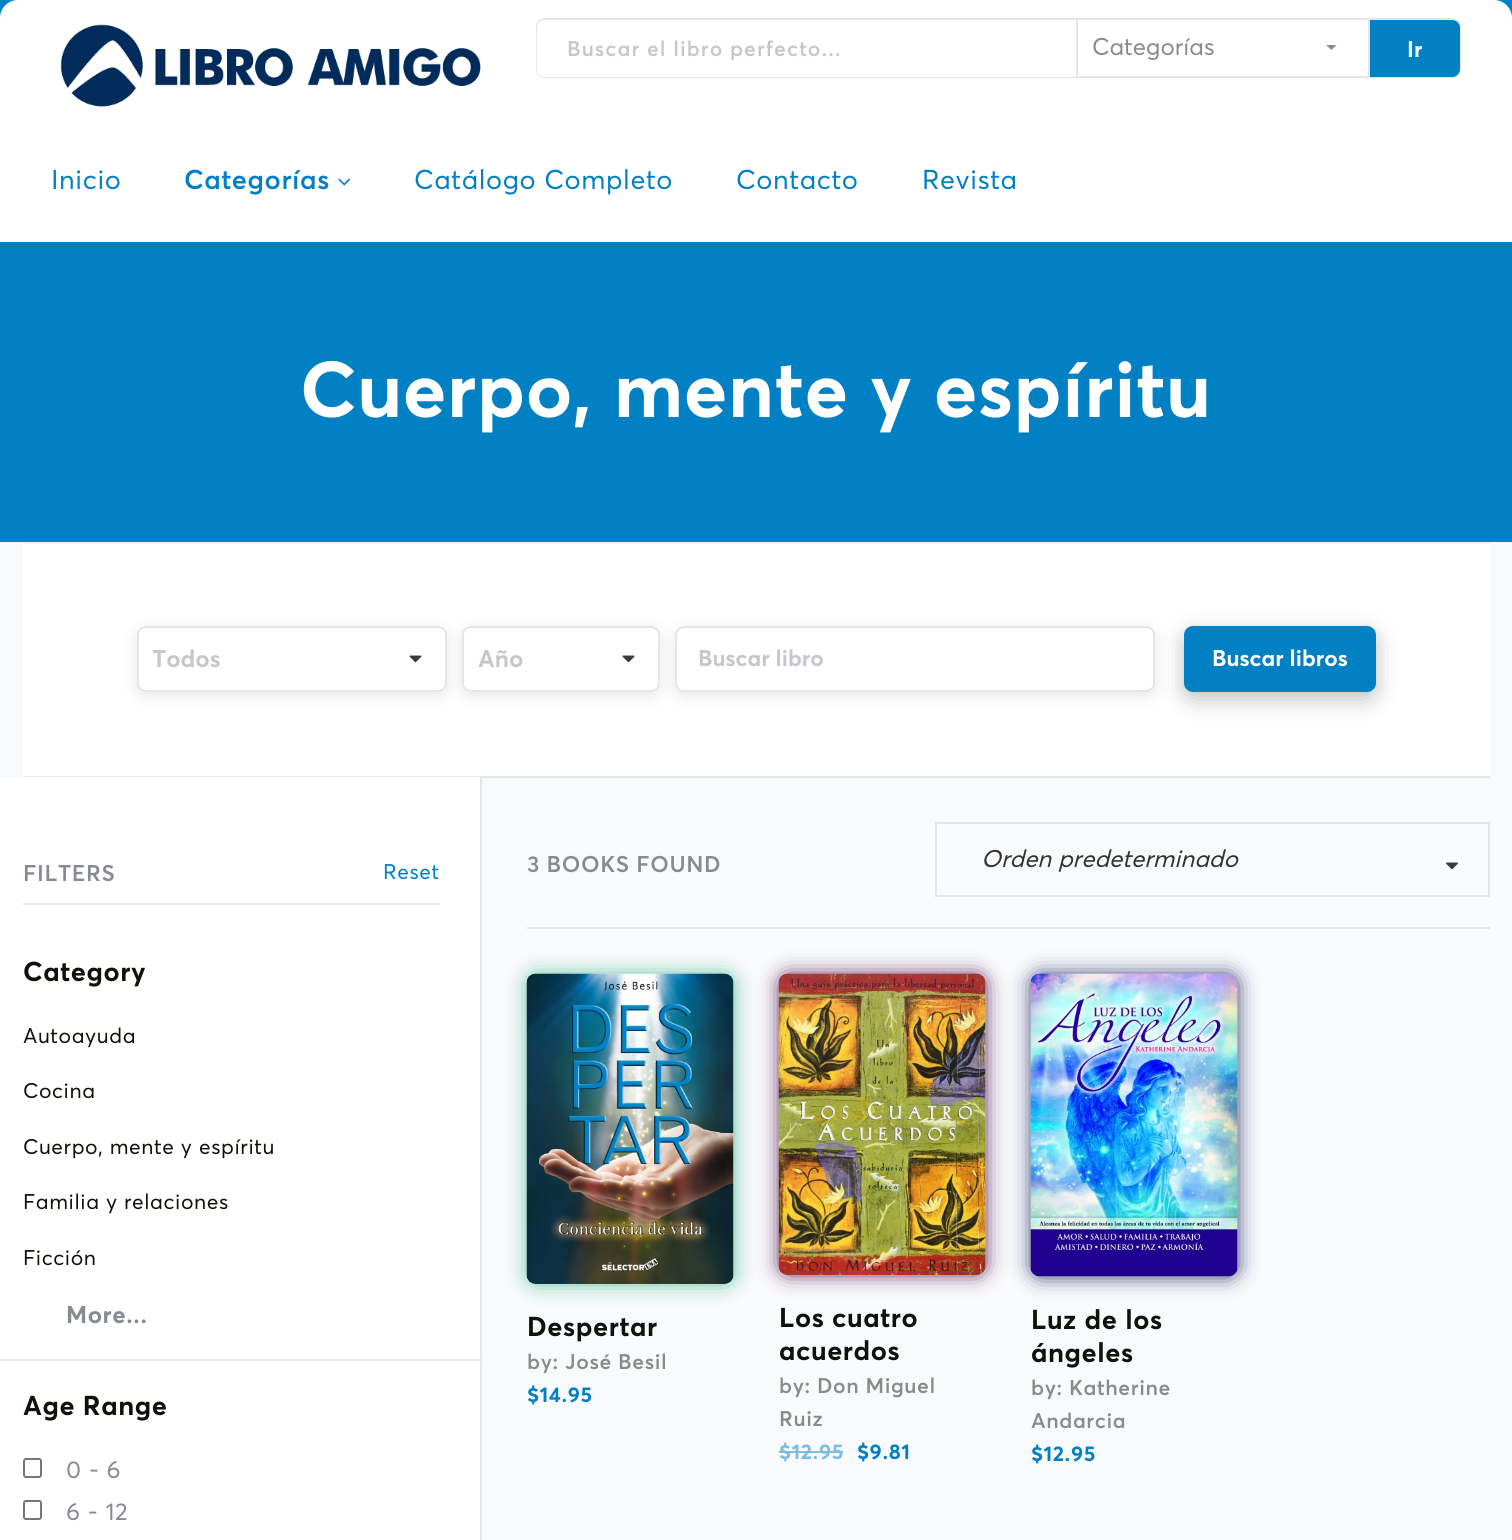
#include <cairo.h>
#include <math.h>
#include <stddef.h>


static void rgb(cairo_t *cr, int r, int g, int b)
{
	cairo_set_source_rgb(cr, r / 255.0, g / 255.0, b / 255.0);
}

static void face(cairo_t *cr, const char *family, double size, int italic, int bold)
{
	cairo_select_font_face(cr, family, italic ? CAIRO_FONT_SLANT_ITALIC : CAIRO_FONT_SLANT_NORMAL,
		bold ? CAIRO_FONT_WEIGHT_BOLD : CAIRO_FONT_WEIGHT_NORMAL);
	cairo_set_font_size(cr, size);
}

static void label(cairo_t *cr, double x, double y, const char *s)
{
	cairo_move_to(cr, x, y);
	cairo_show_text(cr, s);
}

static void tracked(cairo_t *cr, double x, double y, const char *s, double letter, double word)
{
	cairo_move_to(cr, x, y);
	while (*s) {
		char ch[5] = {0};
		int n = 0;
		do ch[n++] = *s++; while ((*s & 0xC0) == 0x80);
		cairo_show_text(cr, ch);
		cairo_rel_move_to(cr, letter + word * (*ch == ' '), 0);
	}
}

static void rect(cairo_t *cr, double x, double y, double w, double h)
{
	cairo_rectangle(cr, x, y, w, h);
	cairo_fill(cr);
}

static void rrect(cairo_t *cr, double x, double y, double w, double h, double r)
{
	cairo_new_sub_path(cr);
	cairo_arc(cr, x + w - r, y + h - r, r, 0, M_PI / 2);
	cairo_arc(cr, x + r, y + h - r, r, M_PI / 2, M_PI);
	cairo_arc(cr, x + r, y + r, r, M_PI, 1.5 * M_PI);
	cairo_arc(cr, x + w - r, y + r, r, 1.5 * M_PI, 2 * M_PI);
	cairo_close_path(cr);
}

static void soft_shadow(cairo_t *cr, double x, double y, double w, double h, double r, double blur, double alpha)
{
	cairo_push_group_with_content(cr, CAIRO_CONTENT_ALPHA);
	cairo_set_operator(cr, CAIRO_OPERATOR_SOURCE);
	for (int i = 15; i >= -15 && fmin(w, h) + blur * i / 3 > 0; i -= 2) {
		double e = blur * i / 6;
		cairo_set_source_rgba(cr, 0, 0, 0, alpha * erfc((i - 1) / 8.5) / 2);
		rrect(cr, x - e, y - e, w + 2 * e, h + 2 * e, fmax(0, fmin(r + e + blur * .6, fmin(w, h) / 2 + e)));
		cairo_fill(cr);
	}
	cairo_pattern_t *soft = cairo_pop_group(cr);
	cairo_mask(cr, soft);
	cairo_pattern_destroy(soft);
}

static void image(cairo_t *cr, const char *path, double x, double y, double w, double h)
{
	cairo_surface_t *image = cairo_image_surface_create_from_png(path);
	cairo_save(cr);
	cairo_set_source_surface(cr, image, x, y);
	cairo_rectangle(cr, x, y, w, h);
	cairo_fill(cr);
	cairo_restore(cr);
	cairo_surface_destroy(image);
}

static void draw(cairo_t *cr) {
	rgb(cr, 1, 128, 195);
	cairo_paint(cr);
	rgb(cr, 255, 255, 255);
	rrect(cr, 0, 0, 1512, 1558, 18);
	cairo_fill(cr);
	image(cr, "image0.png", 60, 24, 421, 83);
	rrect(cr, 537, 19, 923, 58, 8);
	rgb(cr, 229, 230, 234);
	cairo_stroke(cr);
	rect(cr, 1368, 20, 2, 57);
	rgb(cr, 255, 255, 255);
	cairo_new_path(cr);
	cairo_move_to(cr, 545, 20);
	cairo_line_to(cr, 1076, 20);
	cairo_line_to(cr, 1076, 77);
	cairo_line_to(cr, 545, 77);
	cairo_curve_to(cr, 540.5, 77, 537, 73.5, 537, 69);
	cairo_line_to(cr, 537, 28);
	cairo_curve_to(cr, 537, 23.5, 540.5, 20, 545, 20);
	cairo_close_path(cr);
	cairo_fill(cr);
	face(cr, "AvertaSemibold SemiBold", 21, 0, 0);
	rgb(cr, 198, 199, 203);
	tracked(cr, 567, 56, "Buscar el libro perfecto...", 1.05, 0);
	rgb(cr, 229, 230, 234);
	rect(cr, 1076, 20, 2, 57);
	face(cr, "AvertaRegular", 24, 0, 0);
	rgb(cr, 136, 138, 146);
	label(cr, 1092, 55, "Categorías");
	cairo_new_path(cr);
	cairo_move_to(cr, 1326, 45);
	cairo_line_to(cr, 1336.5, 45);
	cairo_line_to(cr, 1331.5, 50);
	cairo_close_path(cr);
	cairo_fill(cr);
	rgb(cr, 1, 128, 195);
	cairo_new_path(cr);
	cairo_move_to(cr, 1370, 20);
	cairo_line_to(cr, 1452, 20);
	cairo_curve_to(cr, 1456.5, 20, 1460, 23.5, 1460, 28);
	cairo_line_to(cr, 1460, 69);
	cairo_curve_to(cr, 1460, 73.5, 1456.5, 77, 1452, 77);
	cairo_line_to(cr, 1370, 77);
	cairo_close_path(cr);
	cairo_fill(cr);
	face(cr, "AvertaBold", 22.5, 0, 1);
	rgb(cr, 255, 255, 255);
	label(cr, 1407, 57, "Ir");
	face(cr, "AvertaRegular", 27, 0, 0);
	rgb(cr, 1, 128, 195);
	tracked(cr, 51, 189, "Inicio", 0.6, 0);
	face(cr, "AvertaSemibold SemiBold", 27, 0, 0);
	tracked(cr, 184, 189, "Categorías", 0.6, 0);
	image(cr, "image1.png", 338, 178, 13, 8);
	face(cr, "AvertaRegular", 27, 0, 0);
	tracked(cr, 414, 189, "Catálogo Completo", 0.6, 0);
	tracked(cr, 736, 189, "Contacto", 0.6, 0);
	tracked(cr, 922, 189, "Revista", 0.6, 0);
	rect(cr, 0, 242, 1512, 300);
	face(cr, "AvertaBold", 78, 0, 1);
	rgb(cr, 255, 255, 255);
	tracked(cr, 300, 417, "Cuerpo, mente y espíritu", 0.6, 0);
	rgb(cr, 249, 250, 252);
	rect(cr, 0, 542, 1512, 998);
	rgb(cr, 255, 255, 255);
	rect(cr, 23, 544, 1467, 232);
	rgb(cr, 243, 243, 245);
	rect(cr, 23, 542, 1467, 2);
	rgb(cr, 229, 230, 234);
	rect(cr, 23, 776, 1467, 2);
	rgb(cr, 0, 0, 0);
	soft_shadow(cr, 137, 630, 310, 66, 9, 7.5, 0.1);
	rgb(cr, 255, 255, 255);
	rrect(cr, 138, 627, 308, 64, 8);
	cairo_fill_preserve(cr);
	rgb(cr, 229, 230, 234);
	cairo_stroke(cr);
	face(cr, "AvertaBold", 24, 0, 1);
	rgb(cr, 198, 199, 203);
	label(cr, 152, 667, "Todos");
	image(cr, "image2.png", 409, 655, 13, 8);
	rgb(cr, 0, 0, 0);
	soft_shadow(cr, 675, 630, 480, 66, 9, 7.5, 0.1);
	rgb(cr, 255, 255, 255);
	rrect(cr, 676, 627, 478, 64, 8);
	cairo_fill_preserve(cr);
	rgb(cr, 229, 230, 234);
	cairo_stroke(cr);
	rgb(cr, 0, 0, 0);
	soft_shadow(cr, 462, 630, 198, 66, 9, 7.5, 0.1);
	rgb(cr, 255, 255, 255);
	rrect(cr, 463, 627, 196, 64, 8);
	cairo_fill_preserve(cr);
	rgb(cr, 229, 230, 234);
	cairo_stroke(cr);
	rgb(cr, 198, 199, 203);
	label(cr, 478, 667, "Año");
	image(cr, "image2.png", 622, 655, 13, 8);
	face(cr, "AvertaBold", 22.5, 0, 1);
	label(cr, 698, 666, "Buscar libro");
	rgb(cr, 0, 0, 0);
	soft_shadow(cr, 1184, 633, 192, 66, 9, 11, 0.25);
	rgb(cr, 1, 128, 195);
	rrect(cr, 1185, 627, 190, 64, 8);
	cairo_fill_preserve(cr);
	cairo_stroke(cr);
	rgb(cr, 255, 255, 255);
	label(cr, 1212, 666, "Buscar libros");
	rect(cr, 0, 777, 480, 763);
	rgb(cr, 229, 230, 234);
	rect(cr, 480, 777, 2, 763);
	rgb(cr, 231, 232, 235);
	rect(cr, 23, 903, 417, 2);
	face(cr, "AvertaSemibold SemiBold", 22.5, 0, 0);
	rgb(cr, 136, 138, 146);
	tracked(cr, 23, 881, "FILTERS", 0.6, 0);
	face(cr, "AvertaRegular", 21, 0, 0);
	rgb(cr, 1, 128, 195);
	tracked(cr, 383, 879, "Reset", 0.6, 0);
	face(cr, "AvertaBold", 27, 0, 1);
	rgb(cr, 15, 18, 11);
	tracked(cr, 23, 981, "Category", 0.6, 0);
	face(cr, "AvertaRegular", 21, 0, 0);
	tracked(cr, 23, 1043, "Autoayuda", 0.6, 0);
	tracked(cr, 23, 1098, "Cocina", 0.6, 0);
	tracked(cr, 23, 1154, "Cuerpo, mente y espíritu", 0.6, 0);
	tracked(cr, 23, 1209, "Familia y relaciones", 0.6, 0);
	tracked(cr, 23, 1265, "Ficción", 0.6, 0);
	face(cr, "AvertaBold", 24, 0, 1);
	rgb(cr, 136, 138, 146);
	tracked(cr, 66, 1323, "More...", 0.6, 0);
	rgb(cr, 231, 232, 235);
	rect(cr, 0, 1359, 482, 2);
	face(cr, "AvertaBold", 27, 0, 1);
	rgb(cr, 15, 18, 11);
	tracked(cr, 23, 1415, "Age Range", 0.6, 0);
	rrect(cr, 24, 1459, 17, 18, 2);
	rgb(cr, 118, 118, 118);
	cairo_stroke(cr);
	face(cr, "AvertaRegular", 24, 0, 0);
	rgb(cr, 136, 138, 146);
	tracked(cr, 66, 1478, "0 - 6", 0.6, 0);
	rrect(cr, 24, 1501, 17, 18, 2);
	rgb(cr, 118, 118, 118);
	cairo_stroke(cr);
	rgb(cr, 136, 138, 146);
	tracked(cr, 66, 1520, "6 - 12", 0.6, 0);
	rgb(cr, 229, 230, 234);
	rect(cr, 527, 927, 963, 2);
	face(cr, "AvertaSemibold SemiBold", 22.5, 0, 0);
	rgb(cr, 136, 138, 146);
	tracked(cr, 527, 872, "3 BOOKS FOUND", 0.6, 0);
	cairo_rectangle(cr, 936, 823, 553, 73);
	rgb(cr, 229, 229, 229);
	cairo_stroke(cr);
	face(cr, "AvertaRegular", 24, 1, 0);
	rgb(cr, 51, 51, 51);
	label(cr, 981, 867, "Orden predeterminado");
	image(cr, "image3.png", 1446, 862, 12, 8);
	rgb(cr, 55, 178, 137);
	soft_shadow(cr, 530, 977, 201, 304, 6, 11, 1);
	image(cr, "image4.png", 526, 973, 208, 311);
	face(cr, "AvertaBold", 27, 0, 1);
	rgb(cr, 15, 18, 11);
	tracked(cr, 527, 1336, "Despertar", 0.6, 0);
	face(cr, "AvertaSemibold SemiBold", 21, 0, 0);
	rgb(cr, 137, 139, 136);
	tracked(cr, 527, 1369, "by: José Besil", 0.6, 0);
	face(cr, "AvertaBold", 21, 0, 1);
	rgb(cr, 1, 128, 195);
	tracked(cr, 527, 1402, "$14.95", 0.6, 0);
	rgb(cr, 63, 0, 63);
	soft_shadow(cr, 782, 977, 201, 295, 6, 11, 1);
	image(cr, "image5.png", 778, 973, 208, 302);
	face(cr, "AvertaBold", 27, 0, 1);
	rgb(cr, 15, 18, 11);
	tracked(cr, 779, 1327, "Los cuatro", 0.6, 0);
	tracked(cr, 779, 1360, "acuerdos", 0.6, 0);
	face(cr, "AvertaSemibold SemiBold", 21, 0, 0);
	rgb(cr, 137, 139, 136);
	tracked(cr, 779, 1393, "by: Don Miguel", 0.6, 0);
	tracked(cr, 779, 1426, "Ruiz", 0.6, 0);
	face(cr, "AvertaBold", 21, 0, 1);
	rgb(cr, 125, 189, 224);
	tracked(cr, 779, 1459, "$12.95", 0.6, 0);
	rect(cr, 779, 1451, 64, 2);
	rgb(cr, 1, 128, 195);
	tracked(cr, 857, 1459, "$9.81", 0.6, 0);
	rgb(cr, 8, 18, 76);
	soft_shadow(cr, 1034, 977, 201, 297, 6, 11, 1);
	image(cr, "image6.png", 1030, 973, 208, 304);
	face(cr, "AvertaBold", 27, 0, 1);
	rgb(cr, 15, 18, 11);
	tracked(cr, 1031, 1329, "Luz de los", 0.6, 0);
	tracked(cr, 1031, 1362, "ángeles", 0.6, 0);
	face(cr, "AvertaSemibold SemiBold", 21, 0, 0);
	rgb(cr, 137, 139, 136);
	tracked(cr, 1031, 1395, "by: Katherine", 0.6, 0);
	tracked(cr, 1031, 1428, "Andarcia", 0.6, 0);
	face(cr, "AvertaBold", 21, 0, 1);
	rgb(cr, 1, 128, 195);
	tracked(cr, 1031, 1461, "$12.95", 0.6, 0);
}

int main(void) {
	cairo_surface_t *surface = cairo_image_surface_create(CAIRO_FORMAT_RGB24, 1512, 1540);
	cairo_t *cr = cairo_create(surface);
	cairo_font_options_t *options = cairo_font_options_create();
	cairo_font_options_set_hint_metrics(options, CAIRO_HINT_METRICS_OFF);
	cairo_font_options_set_hint_style(options, CAIRO_HINT_STYLE_NONE);
	cairo_set_font_options(cr, options);
	cairo_set_miter_limit(cr, 4);
	draw(cr);
	cairo_surface_write_to_png(surface, "render.png");
	cairo_font_options_destroy(options);
	cairo_destroy(cr);
	cairo_surface_destroy(surface);
	return 0;
}
